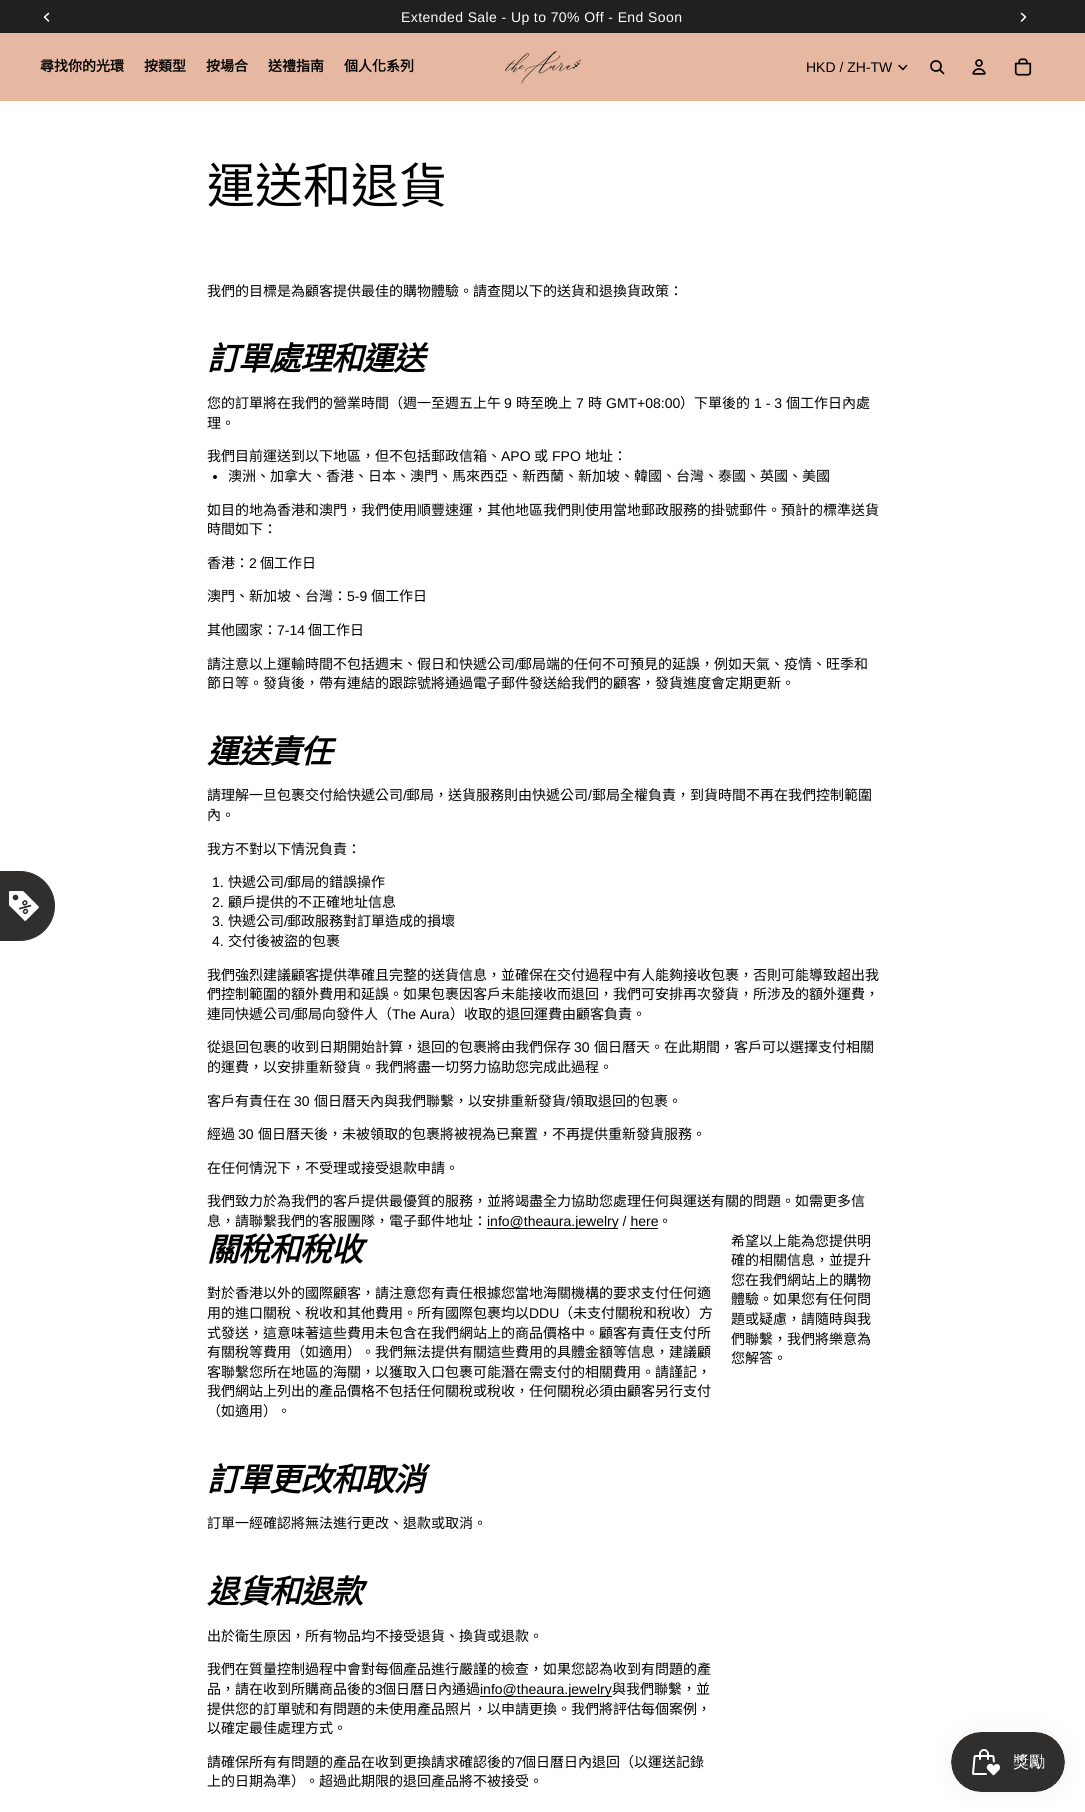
#include <cairo.h>
#include <math.h>
#include <stddef.h>


static void rgb(cairo_t *cr, int r, int g, int b)
{
	cairo_set_source_rgb(cr, r / 255.0, g / 255.0, b / 255.0);
}

static void face(cairo_t *cr, const char *family, double size, int italic, int bold)
{
	cairo_select_font_face(cr, family, italic ? CAIRO_FONT_SLANT_ITALIC : CAIRO_FONT_SLANT_NORMAL,
		bold ? CAIRO_FONT_WEIGHT_BOLD : CAIRO_FONT_WEIGHT_NORMAL);
	cairo_set_font_size(cr, size);
}

static void label(cairo_t *cr, double x, double y, const char *s)
{
	cairo_move_to(cr, x, y);
	cairo_show_text(cr, s);
}

static void tracked(cairo_t *cr, double x, double y, const char *s, double letter, double word)
{
	cairo_move_to(cr, x, y);
	while (*s) {
		char ch[5] = {0};
		int n = 0;
		do ch[n++] = *s++; while ((*s & 0xC0) == 0x80);
		cairo_show_text(cr, ch);
		cairo_rel_move_to(cr, letter + word * (*ch == ' '), 0);
	}
}

static void rect(cairo_t *cr, double x, double y, double w, double h)
{
	cairo_rectangle(cr, x, y, w, h);
	cairo_fill(cr);
}

static void rrect(cairo_t *cr, double x, double y, double w, double h, double r)
{
	cairo_new_sub_path(cr);
	cairo_arc(cr, x + w - r, y + h - r, r, 0, M_PI / 2);
	cairo_arc(cr, x + r, y + h - r, r, M_PI / 2, M_PI);
	cairo_arc(cr, x + r, y + r, r, M_PI, 1.5 * M_PI);
	cairo_arc(cr, x + w - r, y + r, r, 1.5 * M_PI, 2 * M_PI);
	cairo_close_path(cr);
}

static void soft_shadow(cairo_t *cr, double x, double y, double w, double h, double r, double blur, double alpha)
{
	cairo_push_group_with_content(cr, CAIRO_CONTENT_ALPHA);
	cairo_set_operator(cr, CAIRO_OPERATOR_SOURCE);
	for (int i = 15; i >= -15 && fmin(w, h) + blur * i / 3 > 0; i -= 2) {
		double e = blur * i / 6;
		cairo_set_source_rgba(cr, 0, 0, 0, alpha * erfc((i - 1) / 8.5) / 2);
		rrect(cr, x - e, y - e, w + 2 * e, h + 2 * e, fmax(0, fmin(r + e + blur * .6, fmin(w, h) / 2 + e)));
		cairo_fill(cr);
	}
	cairo_pattern_t *soft = cairo_pop_group(cr);
	cairo_mask(cr, soft);
	cairo_pattern_destroy(soft);
}

static void image(cairo_t *cr, const char *path, double x, double y, double w, double h)
{
	cairo_surface_t *image = cairo_image_surface_create_from_png(path);
	cairo_save(cr);
	cairo_set_source_surface(cr, image, x, y);
	cairo_rectangle(cr, x, y, w, h);
	cairo_fill(cr);
	cairo_restore(cr);
	cairo_surface_destroy(image);
}

static void draw(cairo_t *cr) {
	rgb(cr, 255, 255, 255);
	cairo_paint(cr);
	rgb(cr, 32, 32, 32);
	rect(cr, 0, 0, 1085, 33);
	face(cr, "Liberation Sans", 14, 0, 0);
	rgb(cr, 255, 255, 255);
	tracked(cr, 401, 22, "Extended Sale - Up to 70% Off - End Soon", 0.4, 0);
	cairo_new_path(cr);
	cairo_move_to(cr, 48.5, 13.5);
	cairo_line_to(cr, 44.5, 17);
	cairo_line_to(cr, 48.5, 21);
	cairo_set_line_width(cr, 1.5);
	cairo_set_line_cap(cr, CAIRO_LINE_CAP_ROUND);
	cairo_set_line_join(cr, CAIRO_LINE_JOIN_ROUND);
	cairo_stroke(cr);
	cairo_new_path(cr);
	cairo_move_to(cr, 1021.5, 13.5);
	cairo_line_to(cr, 1025.5, 17);
	cairo_line_to(cr, 1021.5, 21);
	cairo_stroke(cr);
	rgb(cr, 230, 184, 162);
	rect(cr, 0, 33, 1085, 68);
	face(cr, "Noto Sans CJK TC", 14, 0, 1);
	rgb(cr, 0, 0, 0);
	label(cr, 40, 71, "尋找你的光環");
	label(cr, 144, 71, "按類型");
	label(cr, 206, 71, "按場合");
	label(cr, 268, 71, "送禮指南");
	label(cr, 344, 71, "個人化系列");
	image(cr, "image0.png", 504, 51, 78, 33);
	face(cr, "Liberation Sans", 14, 0, 0);
	label(cr, 806, 72, "HKD / ZH-TW");
	cairo_new_path(cr);
	cairo_move_to(cr, 906.5, 65.5);
	cairo_line_to(cr, 903, 69.5);
	cairo_line_to(cr, 899, 65.5);
	cairo_stroke(cr);
	cairo_arc(cr, 936, 66, 5, 0, 2 * M_PI);
	cairo_set_line_width(cr, 1.7);
	cairo_set_line_cap(cr, CAIRO_LINE_CAP_BUTT);
	cairo_set_line_join(cr, CAIRO_LINE_JOIN_MITER);
	cairo_stroke(cr);
	cairo_new_path(cr);
	cairo_move_to(cr, 940, 70);
	cairo_line_to(cr, 943.5, 73.5);
	cairo_set_line_cap(cr, CAIRO_LINE_CAP_ROUND);
	cairo_set_line_join(cr, CAIRO_LINE_JOIN_ROUND);
	cairo_stroke(cr);
	image(cr, "image1.png", 972, 59, 14, 16);
	image(cr, "image2.png", 1014, 58, 18, 18);
	rgb(cr, 48, 47, 46);
	cairo_new_path(cr);
	cairo_move_to(cr, -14.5, 871.5);
	cairo_line_to(cr, 20, 871.5);
	cairo_curve_to(cr, 39, 871.5, 54.5, 887, 54.5, 906);
	cairo_curve_to(cr, 54.5, 925, 39, 940.5, 20, 940.5);
	cairo_line_to(cr, -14.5, 940.5);
	cairo_close_path(cr);
	cairo_fill_preserve(cr);
	cairo_set_line_width(cr, 1);
	cairo_set_line_cap(cr, CAIRO_LINE_CAP_BUTT);
	cairo_set_line_join(cr, CAIRO_LINE_JOIN_MITER);
	cairo_stroke(cr);
	image(cr, "image3.png", 9, 891, 30, 30);
	face(cr, "Noto Sans CJK TC", 48, 0, 0);
	rgb(cr, 0, 0, 0);
	label(cr, 207, 203, "運送和退貨");
	face(cr, "Noto Sans CJK TC", 14, 0, 0);
	label(cr, 207, 296, "我們的目標是為顧客提供最佳的購物體驗。請查閱以下的送貨和退換貨政策：");
	face(cr, "Noto Sans CJK TC", 32, 1, 1);
	tracked(cr, 207, 370, "訂單處理和運送", -1, 0);
	face(cr, "Noto Sans CJK TC", 14, 0, 0);
	label(cr, 207, 408, "您的訂單將在我們的營業時間（週一至週五上午");
	face(cr, "Liberation Sans", 14, 0, 0);
	label(cr, 504, 408, "9");
	face(cr, "Noto Sans CJK TC", 14, 0, 0);
	label(cr, 516, 408, "時至晚上");
	face(cr, "Liberation Sans", 14, 0, 0);
	label(cr, 576, 408, "7");
	face(cr, "Noto Sans CJK TC", 14, 0, 0);
	label(cr, 588, 408, "時");
	face(cr, "Liberation Sans", 14, 0, 0);
	label(cr, 606, 408, "GMT+08:00");
	face(cr, "Noto Sans CJK TC", 14, 0, 0);
	label(cr, 680, 408, "）下單後的");
	face(cr, "Liberation Sans", 14, 0, 0);
	label(cr, 754, 408, "1 - 3");
	face(cr, "Noto Sans CJK TC", 14, 0, 0);
	label(cr, 786, 408, "個工作日內處");
	label(cr, 207, 428, "理。");
	label(cr, 207, 461, "我們目前運送到以下地區，但不包括郵政信箱、");
	face(cr, "Liberation Sans", 14, 0, 0);
	label(cr, 501, 461, "APO");
	face(cr, "Noto Sans CJK TC", 14, 0, 0);
	label(cr, 534, 461, "或");
	face(cr, "Liberation Sans", 14, 0, 0);
	label(cr, 552, 461, "FPO");
	face(cr, "Noto Sans CJK TC", 14, 0, 0);
	label(cr, 585, 461, "地址：");
	cairo_new_path(cr);
	cairo_arc(cr, 215, 477, 2, 0, 2 * M_PI);
	cairo_fill(cr);
	label(cr, 228, 481, "澳洲、加拿大、香港、日本、澳門、馬來西亞、新西蘭、新加坡、韓國、台灣、泰國、英國、美國");
	label(cr, 207, 515, "如目的地為香港和澳門，我們使用順豐速運，其他地區我們則使用當地郵政服務的掛號郵件。預計的標準送貨");
	label(cr, 207, 534, "時間如下：");
	label(cr, 207, 568, "香港：");
	face(cr, "Liberation Sans", 14, 0, 0);
	label(cr, 249, 568, "2");
	face(cr, "Noto Sans CJK TC", 14, 0, 0);
	label(cr, 260, 568, "個工作日");
	label(cr, 207, 601, "澳門、新加坡、台灣：");
	face(cr, "Liberation Sans", 14, 0, 0);
	label(cr, 347, 601, "5-9");
	face(cr, "Noto Sans CJK TC", 14, 0, 0);
	label(cr, 371, 601, "個工作日");
	label(cr, 207, 635, "其他國家：");
	face(cr, "Liberation Sans", 14, 0, 0);
	label(cr, 277, 635, "7-14");
	face(cr, "Noto Sans CJK TC", 14, 0, 0);
	label(cr, 308, 635, "個工作日");
	label(cr, 207, 669, "請注意以上運輸時間不包括週末、假日和快遞公司");
	face(cr, "Liberation Sans", 14, 0, 0);
	label(cr, 515, 669, "/");
	face(cr, "Noto Sans CJK TC", 14, 0, 0);
	label(cr, 518, 669, "郵局端的任何不可預見的延誤，例如天氣、疫情、旺季和");
	label(cr, 207, 688, "節日等。發貨後，帶有連結的跟踪號將通過電子郵件發送給我們的顧客，發貨進度會定期更新。");
	face(cr, "Noto Sans CJK TC", 32, 1, 1);
	tracked(cr, 207, 763, "運送責任", -1, 0);
	face(cr, "Noto Sans CJK TC", 14, 0, 0);
	label(cr, 207, 800, "請理解一旦包裹交付給快遞公司");
	face(cr, "Liberation Sans", 14, 0, 0);
	label(cr, 403, 800, "/");
	face(cr, "Noto Sans CJK TC", 14, 0, 0);
	label(cr, 406, 800, "郵局，送貨服務則由快遞公司");
	face(cr, "Liberation Sans", 14, 0, 0);
	label(cr, 588, 800, "/");
	face(cr, "Noto Sans CJK TC", 14, 0, 0);
	label(cr, 592, 800, "郵局全權負責，到貨時間不再在我們控制範圍");
	label(cr, 207, 820, "內。");
	label(cr, 207, 854, "我方不對以下情況負責：");
	face(cr, "Liberation Sans", 14, 0, 0);
	label(cr, 212, 887, "1.");
	face(cr, "Noto Sans CJK TC", 14, 0, 0);
	label(cr, 228, 887, "快遞公司");
	face(cr, "Liberation Sans", 14, 0, 0);
	label(cr, 284, 887, "/");
	face(cr, "Noto Sans CJK TC", 14, 0, 0);
	label(cr, 287, 887, "郵局的錯誤操作");
	face(cr, "Liberation Sans", 14, 0, 0);
	label(cr, 212, 907, "2.");
	face(cr, "Noto Sans CJK TC", 14, 0, 0);
	label(cr, 228, 907, "顧戶提供的不正確地址信息");
	face(cr, "Liberation Sans", 14, 0, 0);
	label(cr, 212, 926, "3.");
	face(cr, "Noto Sans CJK TC", 14, 0, 0);
	label(cr, 228, 926, "快遞公司");
	face(cr, "Liberation Sans", 14, 0, 0);
	label(cr, 284, 926, "/");
	face(cr, "Noto Sans CJK TC", 14, 0, 0);
	label(cr, 287, 926, "郵政服務對訂單造成的損壞");
	face(cr, "Liberation Sans", 14, 0, 0);
	label(cr, 212, 946, "4.");
	face(cr, "Noto Sans CJK TC", 14, 0, 0);
	label(cr, 228, 946, "交付後被盜的包裹");
	label(cr, 207, 980, "我們強烈建議顧客提供準確且完整的送貨信息，並確保在交付過程中有人能夠接收包裹，否則可能導致超出我");
	label(cr, 207, 999, "們控制範圍的額外費用和延誤。如果包裹因客戶未能接收而退回，我們可安排再次發貨，所涉及的額外運費，");
	label(cr, 207, 1019, "連同快遞公司");
	face(cr, "Liberation Sans", 14, 0, 0);
	label(cr, 291, 1019, "/");
	face(cr, "Noto Sans CJK TC", 14, 0, 0);
	label(cr, 294, 1019, "郵局向發件人（");
	face(cr, "Liberation Sans", 14, 0, 0);
	label(cr, 392, 1019, "The Aura");
	face(cr, "Noto Sans CJK TC", 14, 0, 0);
	label(cr, 450, 1019, "）收取的退回運費由顧客負責。");
	label(cr, 207, 1052, "從退回包裹的收到日期開始計算，退回的包裹將由我們保存");
	face(cr, "Liberation Sans", 14, 0, 0);
	label(cr, 574, 1052, "30");
	face(cr, "Noto Sans CJK TC", 14, 0, 0);
	label(cr, 594, 1052, "個日曆天。在此期間，客戶可以選擇支付相關");
	label(cr, 207, 1072, "的運費，以安排重新發貨。我們將盡一切努力協助您完成此過程。");
	label(cr, 207, 1106, "客戶有責任在");
	face(cr, "Liberation Sans", 14, 0, 0);
	label(cr, 294, 1106, "30");
	face(cr, "Noto Sans CJK TC", 14, 0, 0);
	label(cr, 314, 1106, "個日曆天內與我們聯繫，以安排重新發貨");
	face(cr, "Liberation Sans", 14, 0, 0);
	label(cr, 566, 1106, "/");
	face(cr, "Noto Sans CJK TC", 14, 0, 0);
	label(cr, 570, 1106, "領取退回的包裹。");
	label(cr, 207, 1139, "經過");
	face(cr, "Liberation Sans", 14, 0, 0);
	label(cr, 238, 1139, "30");
	face(cr, "Noto Sans CJK TC", 14, 0, 0);
	label(cr, 258, 1139, "個日曆天後，未被領取的包裹將被視為已棄置，不再提供重新發貨服務。");
	label(cr, 207, 1173, "在任何情況下，不受理或接受退款申請。");
	label(cr, 207, 1206, "我們致力於為我們的客戶提供最優質的服務，並將竭盡全力協助您處理任何與運送有關的問題。如需更多信");
	label(cr, 207, 1226, "息，請聯繫我們的客服團隊，電子郵件地址：");
	rect(cr, 487, 1228, 131, 1);
	face(cr, "Liberation Sans", 14, 0, 0);
	label(cr, 487, 1226, "info@theaura.jewelry / here");
	face(cr, "Noto Sans CJK TC", 14, 0, 0);
	label(cr, 658, 1226, "。");
	rect(cr, 630, 1228, 28, 1);
	face(cr, "Noto Sans CJK TC", 32, 1, 1);
	tracked(cr, 207, 1261, "關稅和稅收", -1, 0);
	face(cr, "Noto Sans CJK TC", 14, 0, 0);
	label(cr, 207, 1298, "對於香港以外的國際顧客，請注意您有責任根據您當地海關機構的要求支付任何適");
	label(cr, 207, 1318, "用的進口關稅、稅收和其他費用。所有國際包裹均以");
	face(cr, "Liberation Sans", 14, 0, 0);
	label(cr, 529, 1318, "DDU");
	face(cr, "Noto Sans CJK TC", 14, 0, 0);
	label(cr, 559, 1318, "（未支付關稅和稅收）方");
	label(cr, 207, 1338, "式發送，這意味著這些費用未包含在我們網站上的商品價格中。顧客有責任支付所");
	label(cr, 207, 1357, "有關稅等費用（如適用）。我們無法提供有關這些費用的具體金額等信息，建議顧");
	label(cr, 207, 1377, "客聯繫您所在地區的海關，以獲取入口包裹可能潛在需支付的相關費用。請謹記，");
	label(cr, 207, 1396, "我們網站上列出的產品價格不包括任何關稅或稅收，任何關稅必須由顧客另行支付");
	label(cr, 207, 1416, "（如適用）。");
	face(cr, "Noto Sans CJK TC", 32, 1, 1);
	tracked(cr, 207, 1491, "訂單更改和取消", -1, 0);
	face(cr, "Noto Sans CJK TC", 14, 0, 0);
	label(cr, 207, 1528, "訂單一經確認將無法進行更改、退款或取消。");
	face(cr, "Noto Sans CJK TC", 32, 1, 1);
	tracked(cr, 207, 1603, "退貨和退款", -1, 0);
	face(cr, "Noto Sans CJK TC", 14, 0, 0);
	label(cr, 207, 1641, "出於衛生原因，所有物品均不接受退貨、換貨或退款。");
	label(cr, 207, 1674, "我們在質量控制過程中會對每個產品進行嚴謹的檢查，如果您認為收到有問題的產");
	label(cr, 207, 1694, "品，請在收到所購商品後的");
	face(cr, "Liberation Sans", 14, 0, 0);
	label(cr, 375, 1694, "3");
	face(cr, "Noto Sans CJK TC", 14, 0, 0);
	label(cr, 382, 1694, "個日曆日內通過");
	rect(cr, 480, 1696, 132, 1);
	face(cr, "Liberation Sans", 14, 0, 0);
	label(cr, 480, 1694, "info@theaura.jewelry");
	face(cr, "Noto Sans CJK TC", 14, 0, 0);
	label(cr, 612, 1694, "與我們聯繫，並");
	label(cr, 207, 1714, "提供您的訂單號和有問題的未使用產品照片，以申請更換。我們將評估每個案例，");
	label(cr, 207, 1733, "以確定最佳處理方式。");
	label(cr, 207, 1767, "請確保所有有問題的產品在收到更換請求確認後的");
	face(cr, "Liberation Sans", 14, 0, 0);
	label(cr, 515, 1767, "7");
	face(cr, "Noto Sans CJK TC", 14, 0, 0);
	label(cr, 522, 1767, "個日曆日內退回（以運送記錄");
	label(cr, 207, 1786, "上的日期為準）。超過此期限的退回產品將不被接受。");
	label(cr, 731, 1246, "希望以上能為您提供明");
	label(cr, 731, 1265, "確的相關信息，並提升");
	label(cr, 731, 1285, "您在我們網站上的購物");
	label(cr, 731, 1304, "體驗。如果您有任何問");
	label(cr, 731, 1324, "題或疑慮，請隨時與我");
	label(cr, 731, 1344, "們聯繫，我們將樂意為");
	label(cr, 731, 1363, "您解答。");
	rgb(cr, 0, 0, 0);
	soft_shadow(cr, 951, 1732, 114, 60, 30, 12.5, 0.05);
	image(cr, "image4.png", 951, 1732, 114, 60);
}

int main(void) {
	cairo_surface_t *surface = cairo_image_surface_create(CAIRO_FORMAT_RGB24, 1085, 1812);
	cairo_t *cr = cairo_create(surface);
	cairo_font_options_t *options = cairo_font_options_create();
	cairo_font_options_set_hint_metrics(options, CAIRO_HINT_METRICS_OFF);
	cairo_font_options_set_hint_style(options, CAIRO_HINT_STYLE_NONE);
	cairo_set_font_options(cr, options);
	cairo_set_miter_limit(cr, 4);
	draw(cr);
	cairo_surface_write_to_png(surface, "render.png");
	cairo_font_options_destroy(options);
	cairo_destroy(cr);
	cairo_surface_destroy(surface);
	return 0;
}
